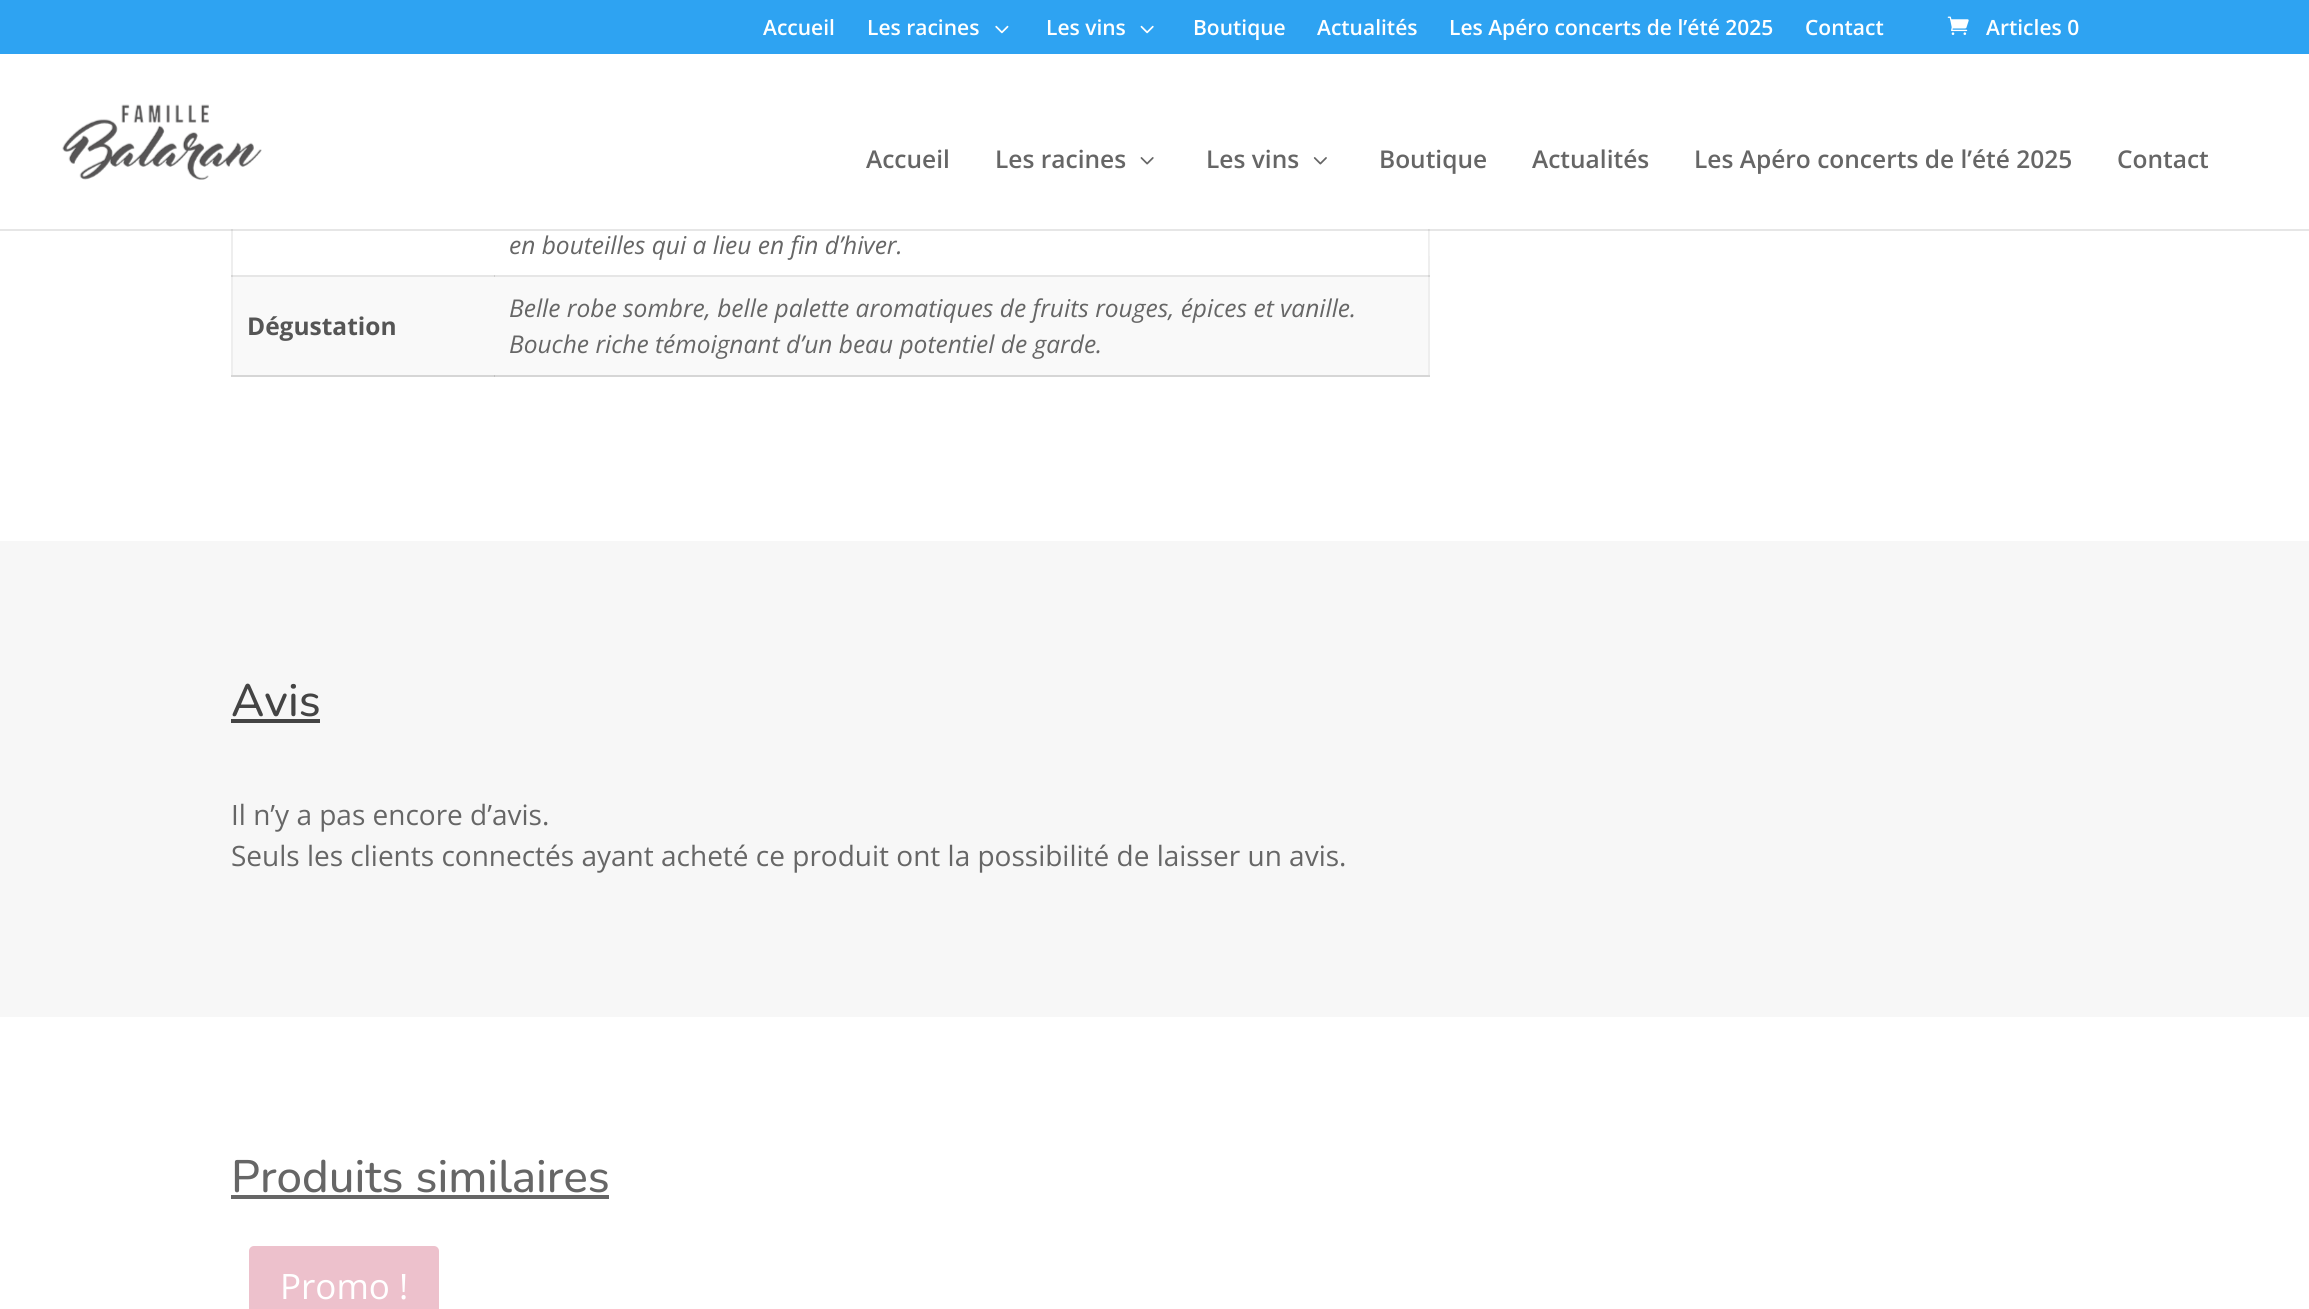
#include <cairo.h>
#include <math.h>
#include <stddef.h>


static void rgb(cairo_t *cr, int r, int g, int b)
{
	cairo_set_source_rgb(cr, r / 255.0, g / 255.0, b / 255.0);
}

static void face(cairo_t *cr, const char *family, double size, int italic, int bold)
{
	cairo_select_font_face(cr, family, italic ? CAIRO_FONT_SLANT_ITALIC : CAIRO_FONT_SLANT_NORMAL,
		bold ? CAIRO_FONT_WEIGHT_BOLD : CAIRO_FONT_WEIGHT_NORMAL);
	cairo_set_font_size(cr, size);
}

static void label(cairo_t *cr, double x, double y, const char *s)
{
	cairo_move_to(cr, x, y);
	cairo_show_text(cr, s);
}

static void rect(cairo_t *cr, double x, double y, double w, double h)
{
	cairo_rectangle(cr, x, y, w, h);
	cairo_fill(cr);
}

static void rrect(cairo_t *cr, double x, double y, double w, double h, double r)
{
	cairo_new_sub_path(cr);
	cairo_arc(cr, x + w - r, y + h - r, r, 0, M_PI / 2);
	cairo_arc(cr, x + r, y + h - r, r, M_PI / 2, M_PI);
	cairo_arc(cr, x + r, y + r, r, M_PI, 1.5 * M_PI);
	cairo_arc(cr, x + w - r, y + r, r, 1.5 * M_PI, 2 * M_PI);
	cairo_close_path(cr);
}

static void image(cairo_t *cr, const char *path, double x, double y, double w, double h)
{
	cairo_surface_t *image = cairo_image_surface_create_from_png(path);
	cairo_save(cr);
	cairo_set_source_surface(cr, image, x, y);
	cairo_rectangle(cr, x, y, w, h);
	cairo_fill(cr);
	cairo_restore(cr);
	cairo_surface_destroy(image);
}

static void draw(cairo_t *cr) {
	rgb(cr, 255, 255, 255);
	cairo_paint(cr);
	rgb(cr, 230, 230, 230);
	rect(cr, 231, 275, 1199, 2);
	rgb(cr, 207, 207, 207);
	rect(cr, 494, 275, 1, 2);
	rgb(cr, 46, 163, 242);
	rect(cr, 0, 0, 2309, 54);
	face(cr, "Open Sans SemiBold", 21, 0, 0);
	rgb(cr, 255, 255, 255);
	label(cr, 763, 35, "Accueil");
	label(cr, 867, 35, "Les racines");
	image(cr, "image0.png", 995, 25, 14, 9);
	label(cr, 1046, 35, "Les vins");
	image(cr, "image1.png", 1140, 25, 14, 9);
	label(cr, 1193, 35, "Boutique");
	label(cr, 1317, 35, "Actualités");
	label(cr, 1449, 35, "Les Apéro concerts de l’été 2025");
	label(cr, 1805, 35, "Contact");
	image(cr, "image2.png", 1947, 16, 22, 19);
	label(cr, 1986, 35, "Articles 0");
	rgb(cr, 238, 238, 238);
	rect(cr, 1428, 229, 2, 147);
	rgb(cr, 214, 214, 214);
	rect(cr, 231, 375, 1199, 2);
	rgb(cr, 238, 238, 238);
	rect(cr, 231, 229, 2, 147);
	image(cr, "image6.png", 1429, 229, 636, 27);
	cairo_set_source_rgba(cr, 0, 0, 0, 0.1);
	rect(cr, 0, 229, 2309, 2);
	image(cr, "image3.png", 62, 104, 200, 76);
	face(cr, "Open Sans SemiBold", 24.5, 0, 0);
	rgb(cr, 102, 102, 102);
	label(cr, 866, 168, "Accueil");
	label(cr, 995, 168, "Les racines");
	image(cr, "image4.png", 1140, 157, 14, 8);
	label(cr, 1206, 168, "Les vins");
	image(cr, "image5.png", 1313, 157, 14, 8);
	label(cr, 1379, 168, "Boutique");
	label(cr, 1532, 168, "Actualités");
	label(cr, 1694, 168, "Les Apéro concerts de l’été 2025");
	label(cr, 2117, 168, "Contact");
	rgb(cr, 214, 214, 214);
	rect(cr, 1428, 275, 2, 2);
	rect(cr, 231, 275, 2, 2);
	rect(cr, 231, 375, 2, 1);
	face(cr, "Open Sans", 24.5, 1, 0);
	rgb(cr, 102, 102, 102);
	label(cr, 509, 254, "en bouteilles qui a lieu en fin d’hiver.");
	rgb(cr, 249, 249, 249);
	rect(cr, 233, 277, 1195, 98);
	face(cr, "Open Sans", 24.5, 0, 1);
	rgb(cr, 85, 85, 85);
	label(cr, 247, 335, "Dégustation");
	rgb(cr, 193, 193, 193);
	rect(cr, 494, 375, 1, 2);
	face(cr, "Open Sans", 24.5, 1, 0);
	rgb(cr, 102, 102, 102);
	label(cr, 509, 317, "Belle robe sombre, belle palette aromatiques de fruits rouges, épices et vanille.");
	label(cr, 509, 353, "Bouche riche témoignant d’un beau potentiel de garde.");
	rgb(cr, 247, 247, 247);
	rect(cr, 0, 541, 2309, 476);
	face(cr, "Nunito ExtraLight", 45.5, 0, 0);
	rgb(cr, 68, 68, 68);
	label(cr, 231, 716, "Avis");
	rect(cr, 231, 719, 89, 4);
	face(cr, "Open Sans", 28, 0, 0);
	rgb(cr, 102, 102, 102);
	label(cr, 231, 825, "Il n’y a pas encore d’avis.");
	label(cr, 231, 866, "Seuls les clients connectés ayant acheté ce produit ont la possibilité de laisser un avis.");
	face(cr, "Nunito ExtraLight", 45.5, 0, 0);
	label(cr, 231, 1192, "Produits similaires");
	rect(cr, 231, 1195, 378, 4);
	rgb(cr, 237, 193, 204);
	rrect(cr, 249, 1246, 190, 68, 5);
	cairo_fill(cr);
	face(cr, "Open Sans", 35, 0, 0);
	rgb(cr, 255, 255, 255);
	label(cr, 280, 1299, "Promo !");
}

int main(void) {
	cairo_surface_t *surface = cairo_image_surface_create(CAIRO_FORMAT_RGB24, 2309, 1309);
	cairo_t *cr = cairo_create(surface);
	cairo_font_options_t *options = cairo_font_options_create();
	cairo_font_options_set_hint_metrics(options, CAIRO_HINT_METRICS_OFF);
	cairo_font_options_set_hint_style(options, CAIRO_HINT_STYLE_NONE);
	cairo_set_font_options(cr, options);
	cairo_set_miter_limit(cr, 4);
	draw(cr);
	cairo_surface_write_to_png(surface, "render.png");
	cairo_font_options_destroy(options);
	cairo_destroy(cr);
	cairo_surface_destroy(surface);
	return 0;
}
